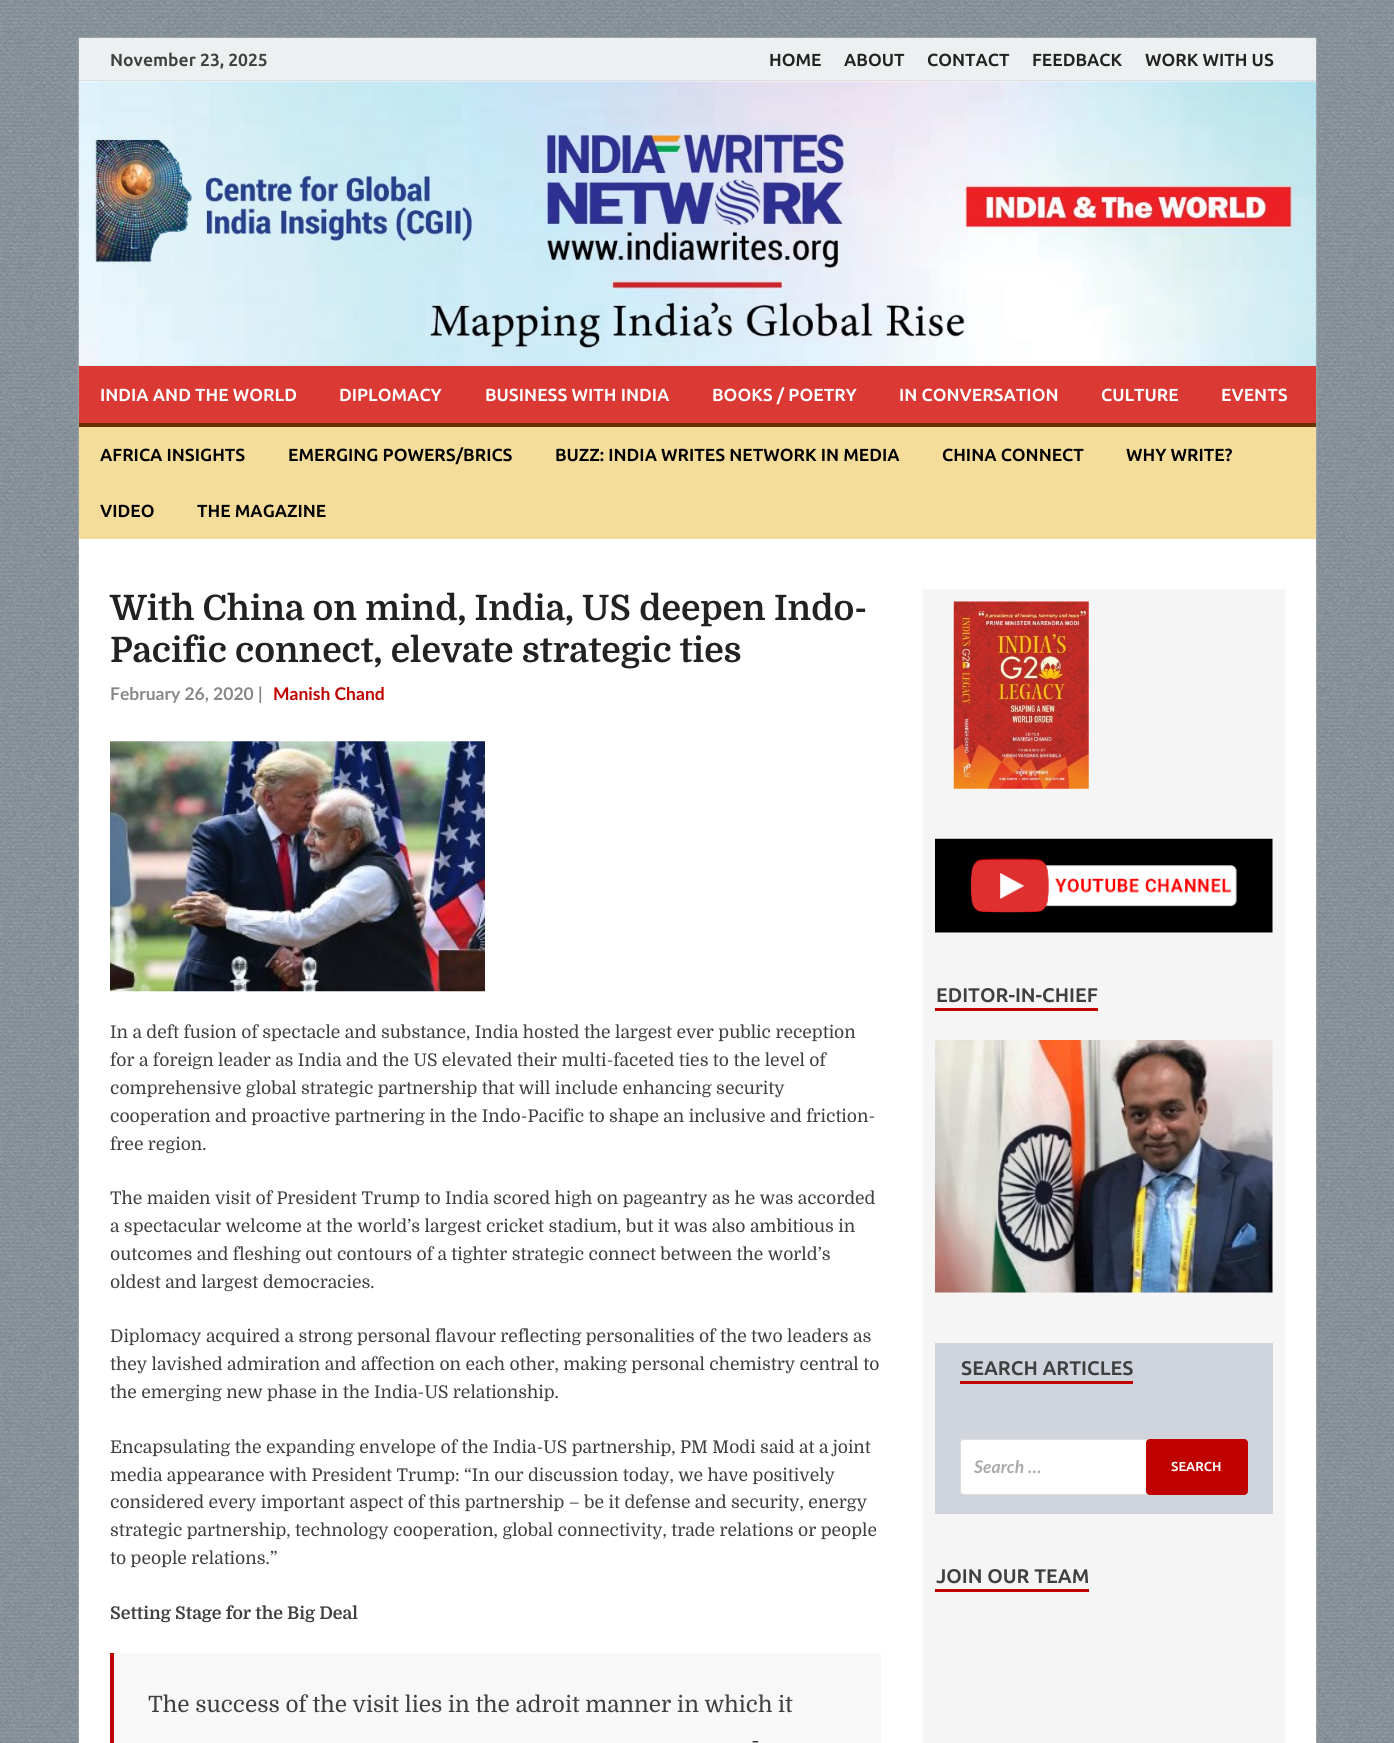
#include <cairo.h>
#include <math.h>
#include <stddef.h>


static void rgb(cairo_t *cr, int r, int g, int b)
{
	cairo_set_source_rgb(cr, r / 255.0, g / 255.0, b / 255.0);
}

static void face(cairo_t *cr, const char *family, double size, int italic, int bold)
{
	cairo_select_font_face(cr, family, italic ? CAIRO_FONT_SLANT_ITALIC : CAIRO_FONT_SLANT_NORMAL,
		bold ? CAIRO_FONT_WEIGHT_BOLD : CAIRO_FONT_WEIGHT_NORMAL);
	cairo_set_font_size(cr, size);
}

static void label(cairo_t *cr, double x, double y, const char *s)
{
	cairo_move_to(cr, x, y);
	cairo_show_text(cr, s);
}

static void rect(cairo_t *cr, double x, double y, double w, double h)
{
	cairo_rectangle(cr, x, y, w, h);
	cairo_fill(cr);
}

static void rrect(cairo_t *cr, double x, double y, double w, double h, double r)
{
	cairo_new_sub_path(cr);
	cairo_arc(cr, x + w - r, y + h - r, r, 0, M_PI / 2);
	cairo_arc(cr, x + r, y + h - r, r, M_PI / 2, M_PI);
	cairo_arc(cr, x + r, y + r, r, M_PI, 1.5 * M_PI);
	cairo_arc(cr, x + w - r, y + r, r, 1.5 * M_PI, 2 * M_PI);
	cairo_close_path(cr);
}

static void soft_shadow(cairo_t *cr, double x, double y, double w, double h, double r, double blur, double alpha)
{
	cairo_push_group_with_content(cr, CAIRO_CONTENT_ALPHA);
	cairo_set_operator(cr, CAIRO_OPERATOR_SOURCE);
	for (int i = 15; i >= -15 && fmin(w, h) + blur * i / 3 > 0; i -= 2) {
		double e = blur * i / 6;
		cairo_set_source_rgba(cr, 0, 0, 0, alpha * erfc((i - 1) / 8.5) / 2);
		rrect(cr, x - e, y - e, w + 2 * e, h + 2 * e, fmax(0, fmin(r + e + blur * .6, fmin(w, h) / 2 + e)));
		cairo_fill(cr);
	}
	cairo_pattern_t *soft = cairo_pop_group(cr);
	cairo_mask(cr, soft);
	cairo_pattern_destroy(soft);
}

static void image(cairo_t *cr, const char *path, double x, double y, double w, double h)
{
	cairo_surface_t *image = cairo_image_surface_create_from_png(path);
	cairo_save(cr);
	cairo_set_source_surface(cr, image, x, y);
	cairo_rectangle(cr, x, y, w, h);
	cairo_fill(cr);
	cairo_restore(cr);
	cairo_surface_destroy(image);
}

static void draw(cairo_t *cr) {
	rgb(cr, 102, 119, 132);
	cairo_paint(cr);
	image(cr, "image0.png", 0, 0, 1394, 1743);
	rgb(cr, 187, 187, 187);
	soft_shadow(cr, 79, 38, 1237, 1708, 0, 1, 1);
	rgb(cr, 255, 255, 255);
	rect(cr, 79, 81, 1237, 1662);
	rgb(cr, 236, 240, 241);
	rect(cr, 79, 38, 1237, 42);
	rgb(cr, 221, 221, 221);
	rect(cr, 79, 80, 1237, 1);
	face(cr, "Ubuntu", 17.5, 0, 1);
	rgb(cr, 64, 64, 64);
	label(cr, 110, 66, "November 23, 2025");
	rgb(cr, 34, 34, 34);
	label(cr, 769, 66, "HOME");
	label(cr, 844, 66, "ABOUT");
	label(cr, 927, 66, "CONTACT");
	label(cr, 1032, 66, "FEEDBACK");
	label(cr, 1145, 66, "WORK WITH US");
	image(cr, "image1.png", 78, 81, 1239, 285);
	rgb(cr, 219, 58, 52);
	rect(cr, 79, 366, 1237, 57);
	rgb(cr, 255, 255, 255);
	label(cr, 100, 401, "INDIA AND THE WORLD");
	label(cr, 339, 401, "DIPLOMACY");
	label(cr, 485, 401, "BUSINESS WITH INDIA");
	label(cr, 712, 401, "BOOKS / POETRY");
	label(cr, 899, 401, "IN CONVERSATION");
	label(cr, 1101, 401, "CULTURE");
	label(cr, 1221, 401, "EVENTS");
	rgb(cr, 244, 220, 154);
	rect(cr, 79, 427, 1237, 112);
	rgb(cr, 102, 51, 0);
	rect(cr, 79, 423, 1237, 4);
	rgb(cr, 0, 0, 0);
	label(cr, 100, 461, "AFRICA INSIGHTS");
	label(cr, 288, 461, "EMERGING POWERS/BRICS");
	label(cr, 555, 461, "BUZZ: INDIA WRITES NETWORK IN MEDIA");
	label(cr, 942, 461, "CHINA CONNECT");
	label(cr, 1126, 461, "WHY WRITE?");
	label(cr, 100, 517, "VIDEO");
	label(cr, 197, 517, "THE MAGAZINE");
	face(cr, "Domine", 35, 0, 1);
	rgb(cr, 34, 34, 34);
	label(cr, 110, 620, "With China on mind, India, US deepen Indo-");
	label(cr, 110, 662, "Pacific connect, elevate strategic ties");
	face(cr, "Lato", 17.5, 0, 1);
	rgb(cr, 136, 136, 136);
	label(cr, 110, 700, "February 26, 2020 |");
	rgb(cr, 191, 2, 0);
	label(cr, 273, 700, "Manish Chand");
	image(cr, "image2.png", 110, 741, 375, 251);
	face(cr, "Domine", 17.5, 0, 0);
	rgb(cr, 64, 64, 64);
	label(cr, 110, 1038, "In a deft fusion of spectacle and substance, India hosted the largest ever public reception");
	label(cr, 110, 1066, "for a foreign leader as India and the US elevated their multi-faceted ties to the level of");
	label(cr, 110, 1094, "comprehensive global strategic partnership that will include enhancing security");
	label(cr, 110, 1122, "cooperation and proactive partnering in the Indo-Pacific to shape an inclusive and friction-");
	label(cr, 110, 1150, "free region.");
	label(cr, 110, 1204, "The maiden visit of President Trump to India scored high on pageantry as he was accorded");
	label(cr, 110, 1232, "a spectacular welcome at the world’s largest cricket stadium, but it was also ambitious in");
	label(cr, 110, 1260, "outcomes and fleshing out contours of a tighter strategic connect between the world’s");
	label(cr, 110, 1288, "oldest and largest democracies.");
	label(cr, 110, 1342, "Diplomacy acquired a strong personal flavour reflecting personalities of the two leaders as");
	label(cr, 110, 1370, "they lavished admiration and affection on each other, making personal chemistry central to");
	label(cr, 110, 1398, "the emerging new phase in the India-US relationship.");
	label(cr, 110, 1453, "Encapsulating the expanding envelope of the India-US partnership, PM Modi said at a joint");
	label(cr, 110, 1481, "media appearance with President Trump: “In our discussion today, we have positively");
	label(cr, 110, 1508, "considered every important aspect of this partnership – be it defense and security, energy");
	label(cr, 110, 1536, "strategic partnership, technology cooperation, global connectivity, trade relations or people");
	label(cr, 110, 1564, "to people relations.”");
	face(cr, "Domine", 17.5, 0, 1);
	label(cr, 110, 1619, "Setting Stage for the Big Deal");
	rgb(cr, 248, 248, 248);
	rect(cr, 114, 1653, 767, 90);
	rgb(cr, 191, 2, 0);
	rect(cr, 110, 1653, 4, 90);
	face(cr, "Domine", 22.5, 0, 0);
	rgb(cr, 64, 64, 64);
	label(cr, 148, 1712, "The success of the visit lies in the adroit manner in which it");
	label(cr, 751, 1748, "-");
	rgb(cr, 245, 245, 245);
	rect(cr, 923, 589, 362, 1154);
	image(cr, "image3.png", 953, 601, 136, 188);
	image(cr, "image4.png", 935, 838, 338, 95);
	rgb(cr, 191, 2, 0);
	rect(cr, 935, 1008, 163, 3);
	face(cr, "Ubuntu", 19.75, 0, 1);
	rgb(cr, 64, 64, 64);
	label(cr, 936, 1002, "EDITOR-IN-CHIEF");
	image(cr, "image5.png", 935, 1040, 338, 253);
	rgb(cr, 208, 212, 221);
	rect(cr, 935, 1343, 338, 171);
	rgb(cr, 191, 2, 0);
	rect(cr, 960, 1381, 173, 3);
	rgb(cr, 64, 64, 64);
	label(cr, 961, 1375, "SEARCH ARTICLES");
	rgb(cr, 255, 255, 255);
	rrect(cr, 960.5, 1439.5, 287, 55, 3.5);
	cairo_fill_preserve(cr);
	rgb(cr, 221, 221, 221);
	cairo_set_line_width(cr, 1);
	cairo_stroke(cr);
	face(cr, "Lato", 17.5, 1, 1);
	rgb(cr, 170, 170, 170);
	label(cr, 974, 1473, "Search …");
	rgb(cr, 191, 2, 0);
	rrect(cr, 1146, 1439, 102, 56, 4);
	cairo_fill(cr);
	face(cr, "Ubuntu", 13, 0, 1);
	rgb(cr, 255, 255, 255);
	label(cr, 1171, 1471, "SEARCH");
	rgb(cr, 191, 2, 0);
	rect(cr, 935, 1589, 154, 3);
	face(cr, "Ubuntu", 19.75, 0, 1);
	rgb(cr, 64, 64, 64);
	label(cr, 936, 1583, "JOIN OUR TEAM");
}

int main(void) {
	cairo_surface_t *surface = cairo_image_surface_create(CAIRO_FORMAT_RGB24, 1394, 1743);
	cairo_t *cr = cairo_create(surface);
	cairo_font_options_t *options = cairo_font_options_create();
	cairo_font_options_set_hint_metrics(options, CAIRO_HINT_METRICS_OFF);
	cairo_font_options_set_hint_style(options, CAIRO_HINT_STYLE_NONE);
	cairo_set_font_options(cr, options);
	cairo_set_miter_limit(cr, 4);
	draw(cr);
	cairo_surface_write_to_png(surface, "render.png");
	cairo_font_options_destroy(options);
	cairo_destroy(cr);
	cairo_surface_destroy(surface);
	return 0;
}
